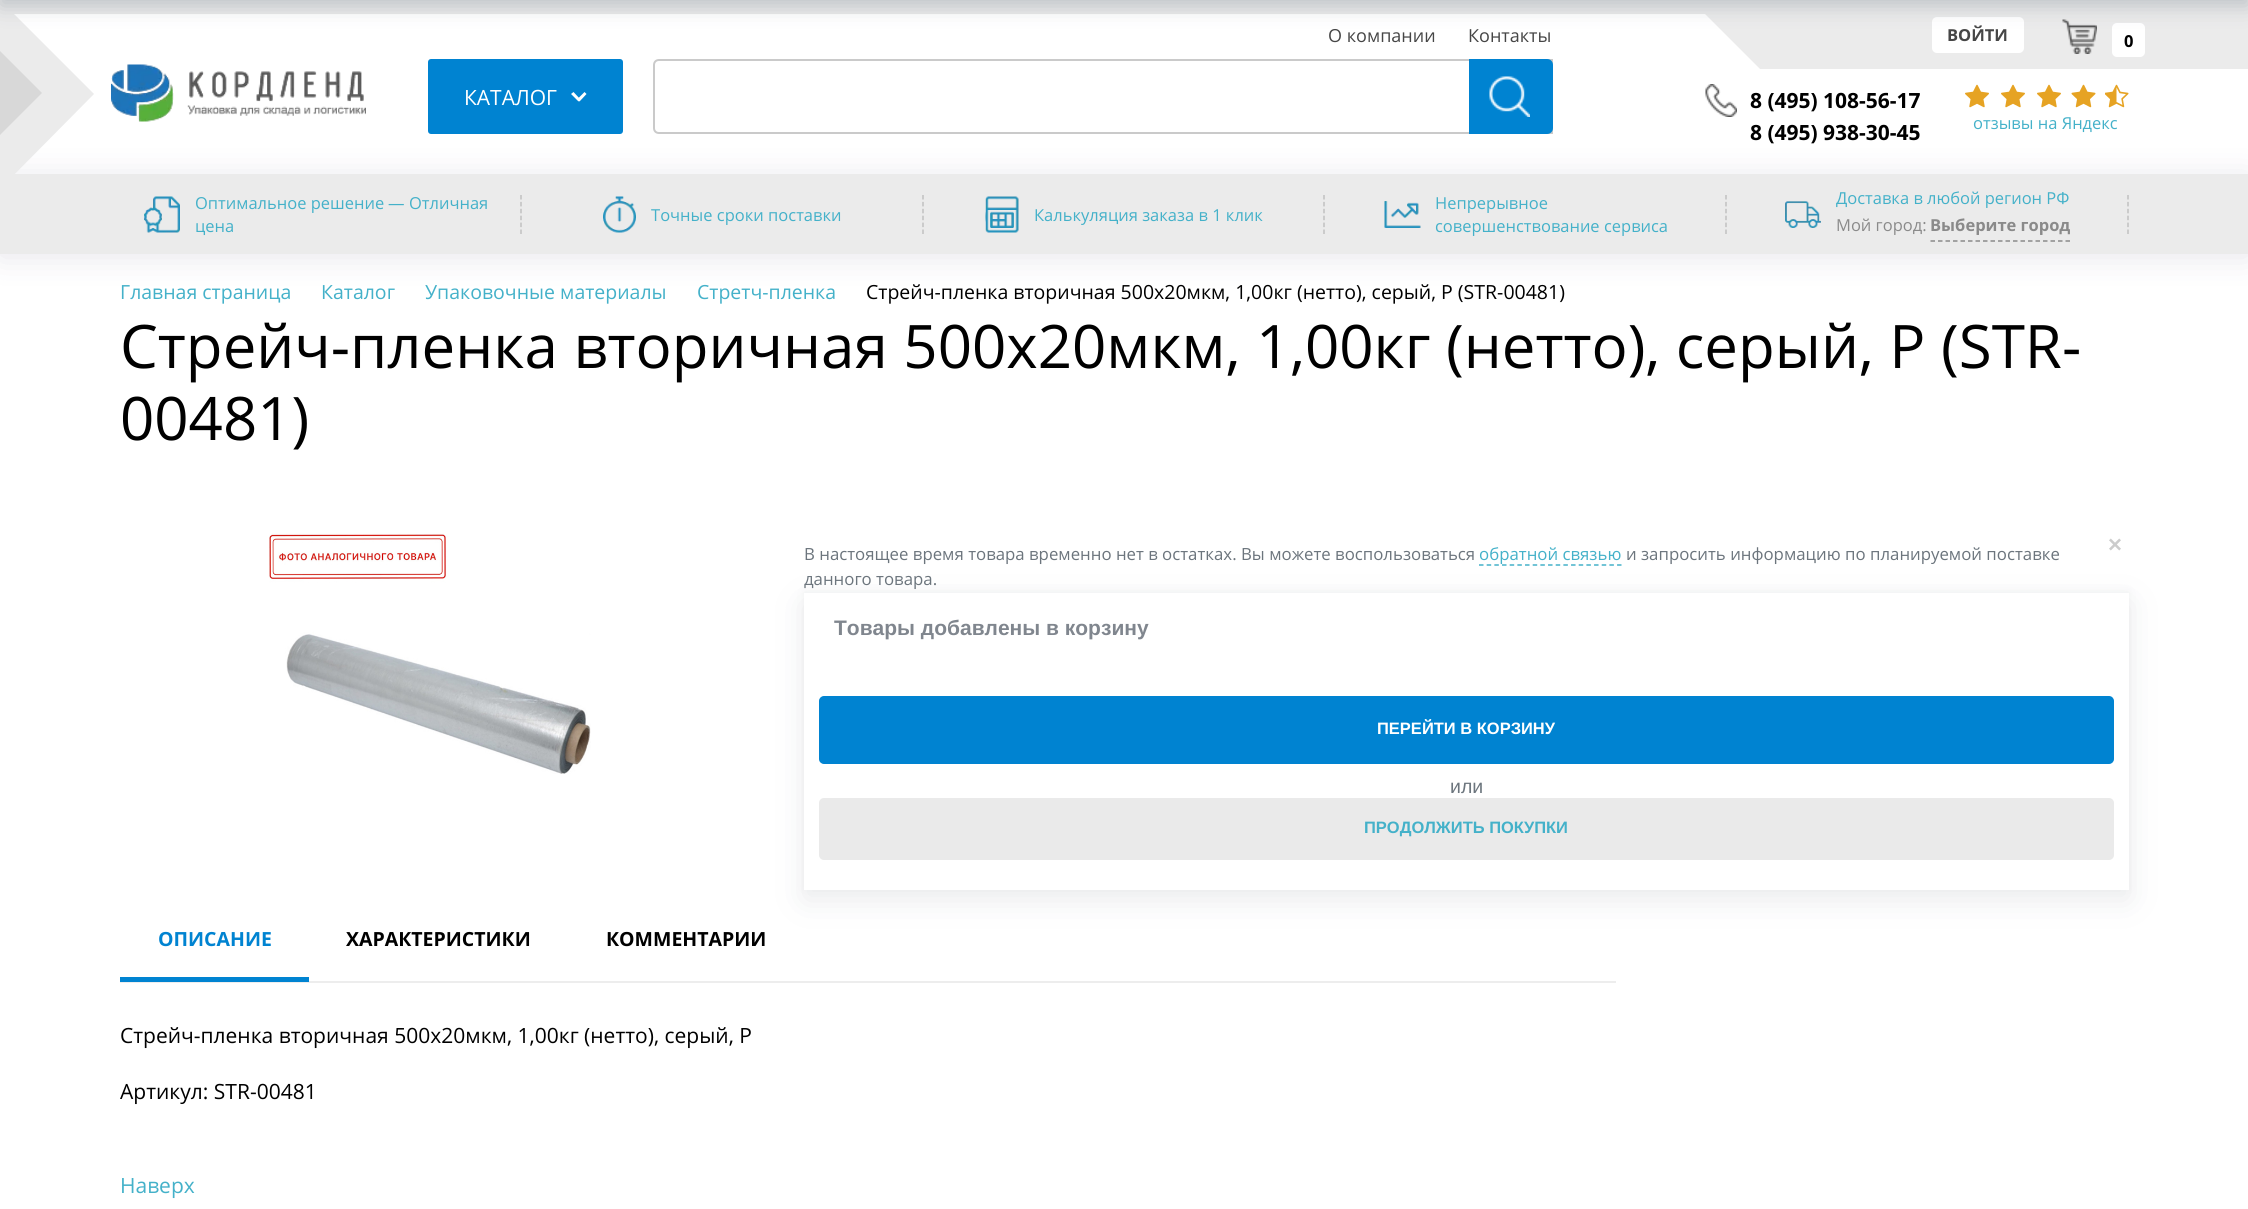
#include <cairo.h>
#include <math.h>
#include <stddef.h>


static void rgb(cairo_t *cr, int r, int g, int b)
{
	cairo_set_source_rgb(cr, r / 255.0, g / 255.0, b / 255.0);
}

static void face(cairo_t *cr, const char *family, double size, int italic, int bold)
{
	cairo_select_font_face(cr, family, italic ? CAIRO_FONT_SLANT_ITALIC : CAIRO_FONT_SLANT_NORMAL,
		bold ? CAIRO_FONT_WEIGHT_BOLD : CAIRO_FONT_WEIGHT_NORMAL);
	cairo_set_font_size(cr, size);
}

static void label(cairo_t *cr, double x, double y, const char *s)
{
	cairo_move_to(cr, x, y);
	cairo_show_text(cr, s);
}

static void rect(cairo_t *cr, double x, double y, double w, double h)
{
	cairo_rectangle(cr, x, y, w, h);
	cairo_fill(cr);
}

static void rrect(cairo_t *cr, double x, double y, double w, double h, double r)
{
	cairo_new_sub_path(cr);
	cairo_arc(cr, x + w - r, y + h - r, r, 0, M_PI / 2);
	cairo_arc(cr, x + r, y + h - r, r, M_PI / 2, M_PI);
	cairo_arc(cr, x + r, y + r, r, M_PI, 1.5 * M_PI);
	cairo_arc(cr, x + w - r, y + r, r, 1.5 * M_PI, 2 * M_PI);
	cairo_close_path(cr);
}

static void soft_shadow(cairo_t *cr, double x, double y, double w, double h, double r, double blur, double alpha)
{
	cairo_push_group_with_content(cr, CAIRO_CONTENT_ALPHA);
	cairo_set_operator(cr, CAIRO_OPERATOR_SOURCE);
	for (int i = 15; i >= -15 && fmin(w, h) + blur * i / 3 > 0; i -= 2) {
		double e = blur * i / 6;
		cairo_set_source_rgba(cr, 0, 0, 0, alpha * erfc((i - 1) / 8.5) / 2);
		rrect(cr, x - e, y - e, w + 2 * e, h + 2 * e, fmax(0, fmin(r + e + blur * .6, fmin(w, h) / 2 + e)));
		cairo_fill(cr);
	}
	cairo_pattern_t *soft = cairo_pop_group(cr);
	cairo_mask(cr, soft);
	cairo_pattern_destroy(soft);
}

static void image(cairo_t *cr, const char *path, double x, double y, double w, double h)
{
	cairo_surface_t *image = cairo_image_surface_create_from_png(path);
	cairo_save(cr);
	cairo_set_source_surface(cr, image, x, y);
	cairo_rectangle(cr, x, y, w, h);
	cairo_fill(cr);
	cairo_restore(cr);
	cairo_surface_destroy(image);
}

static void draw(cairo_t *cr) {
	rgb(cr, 255, 255, 255);
	cairo_paint(cr);
	rgb(cr, 235, 235, 235);
	rect(cr, 0, 0, 2248, 14);
	rgb(cr, 32, 19, 78);
	soft_shadow(cr, 0, 177, 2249, 80, 0, 16, 0.11);
	rgb(cr, 235, 235, 235);
	rect(cr, 0, 174, 2248, 80);
	cairo_new_path(cr);
	cairo_move_to(cr, 0, 189);
	cairo_line_to(cr, 0, 0);
	cairo_line_to(cr, 94, 94);
	cairo_close_path(cr);
	cairo_fill(cr);
	cairo_new_path(cr);
	cairo_move_to(cr, 1694, 3);
	cairo_line_to(cr, 2248, 3);
	cairo_line_to(cr, 2248, 69);
	cairo_line_to(cr, 1760, 69);
	cairo_close_path(cr);
	cairo_fill(cr);
	image(cr, "image0.png", 111, 64, 255, 58);
	face(cr, "Open Sans", 18, 0, 0);
	rgb(cr, 70, 70, 70);
	label(cr, 1328, 42, "О компании");
	label(cr, 1468, 42, "Контакты");
	rgb(cr, 0, 131, 209);
	rrect(cr, 428, 59, 195, 75, 3);
	cairo_fill(cr);
	face(cr, "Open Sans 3", 21, 0, 0);
	rgb(cr, 255, 255, 255);
	label(cr, 464, 105, "КАТАЛОГ");
	cairo_new_path(cr);
	cairo_move_to(cr, 577, 99.5);
	cairo_line_to(cr, 584.5, 92);
	cairo_line_to(cr, 586.5, 94);
	cairo_line_to(cr, 579.5, 101.5);
	cairo_close_path(cr);
	cairo_fill(cr);
	cairo_new_path(cr);
	cairo_move_to(cr, 573.5, 92);
	cairo_line_to(cr, 580.5, 99.5);
	cairo_line_to(cr, 578.5, 101.5);
	cairo_line_to(cr, 571, 94);
	cairo_close_path(cr);
	cairo_fill(cr);
	cairo_new_path(cr);
	cairo_move_to(cr, 659, 60);
	cairo_line_to(cr, 1552, 60);
	cairo_line_to(cr, 1552, 133);
	cairo_line_to(cr, 659, 133);
	cairo_curve_to(cr, 656, 133, 654, 131, 654, 128);
	cairo_line_to(cr, 654, 65);
	cairo_curve_to(cr, 654, 62, 656, 60, 659, 60);
	cairo_close_path(cr);
	rgb(cr, 202, 202, 202);
	cairo_stroke(cr);
	rgb(cr, 0, 131, 209);
	cairo_new_path(cr);
	cairo_move_to(cr, 1469, 59);
	cairo_line_to(cr, 1547, 59);
	cairo_curve_to(cr, 1550.5, 59, 1553, 61.5, 1553, 65);
	cairo_line_to(cr, 1553, 128);
	cairo_curve_to(cr, 1553, 131.5, 1550.5, 134, 1547, 134);
	cairo_line_to(cr, 1469, 134);
	cairo_close_path(cr);
	cairo_fill(cr);
	image(cr, "image1.png", 1489, 76, 41, 41);
	rgb(cr, 255, 255, 255);
	rrect(cr, 1932, 17, 92, 36, 5);
	cairo_fill(cr);
	face(cr, "Open Sans", 16.5, 0, 1);
	rgb(cr, 70, 70, 70);
	label(cr, 1947, 41, "ВОЙТИ");
	image(cr, "image2.png", 1705, 84, 32, 33);
	face(cr, "Open Sans", 21, 0, 1);
	rgb(cr, 0, 0, 0);
	label(cr, 1750, 108, "8 (495) 108-56-17");
	label(cr, 1750, 140, "8 (495) 938-30-45");
	image(cr, "image3.png", 1965, 84, 24, 24);
	image(cr, "image3.png", 2001, 84, 24, 24);
	image(cr, "image3.png", 2037, 84, 24, 24);
	image(cr, "image4.png", 2071, 84, 25, 24);
	image(cr, "image5.png", 2105, 84, 24, 24);
	face(cr, "Open Sans", 16.5, 0, 0);
	rgb(cr, 68, 177, 201);
	label(cr, 1973, 129, "отзывы на Яндекс");
	image(cr, "image6.png", 2062, 19, 35, 35);
	rgb(cr, 255, 255, 255);
	rrect(cr, 2112, 23, 33, 34, 5);
	cairo_fill(cr);
	face(cr, "Open Sans", 16.5, 0, 1);
	rgb(cr, 0, 0, 0);
	label(cr, 2124, 47, "0");
	rgb(cr, 216, 216, 216);
	cairo_new_path(cr);
	cairo_move_to(cr, 0, 135);
	cairo_line_to(cr, 0, 51);
	cairo_line_to(cr, 42, 93);
	cairo_close_path(cr);
	cairo_fill(cr);
	image(cr, "image7.png", 144, 196, 36, 37);
	face(cr, "Open Sans", 16.5, 0, 0);
	rgb(cr, 68, 177, 201);
	label(cr, 195, 209, "Оптимальное решение");
	face(cr, "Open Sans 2", 16.5, 0, 0);
	label(cr, 388, 209, "—");
	face(cr, "Open Sans", 16.5, 0, 0);
	label(cr, 409, 209, "Отличная");
	label(cr, 195, 232, "цена");
	cairo_new_path(cr);
	cairo_move_to(cr, 521, 195);
	cairo_line_to(cr, 521, 234);
	rgb(cr, 192, 192, 192);
	cairo_set_line_width(cr, 1.5);
	cairo_set_dash(cr, (double[]){4.5, 2.4}, 2, 0);
	cairo_stroke(cr);
	image(cr, "image8.png", 603, 196, 33, 37);
	rgb(cr, 68, 177, 201);
	label(cr, 651, 221, "Точные сроки поставки");
	cairo_new_path(cr);
	cairo_move_to(cr, 923, 195);
	cairo_line_to(cr, 923, 234);
	rgb(cr, 192, 192, 192);
	cairo_stroke(cr);
	image(cr, "image9.png", 985, 196, 34, 37);
	rgb(cr, 68, 177, 201);
	label(cr, 1034, 221, "Калькуляция заказа в 1 клик");
	cairo_new_path(cr);
	cairo_move_to(cr, 1324, 195);
	cairo_line_to(cr, 1324, 234);
	rgb(cr, 192, 192, 192);
	cairo_stroke(cr);
	image(cr, "image10.png", 1384, 201, 37, 27);
	rgb(cr, 68, 177, 201);
	label(cr, 1435, 209, "Непрерывное");
	label(cr, 1435, 232, "совершенствование сервиса");
	cairo_new_path(cr);
	cairo_move_to(cr, 1726, 195);
	cairo_line_to(cr, 1726, 234);
	rgb(cr, 192, 192, 192);
	cairo_stroke(cr);
	image(cr, "image11.png", 1785, 201, 36, 27);
	rgb(cr, 68, 177, 201);
	label(cr, 1836, 204, "Доставка в любой регион РФ");
	rgb(cr, 138, 138, 138);
	label(cr, 1836, 231, "Мой город:");
	cairo_new_path(cr);
	cairo_move_to(cr, 1930.5, 241);
	cairo_line_to(cr, 2070, 241);
	cairo_set_dash(cr, (double[]){4.5, 3}, 2, 0);
	cairo_stroke(cr);
	face(cr, "Open Sans", 16.5, 0, 1);
	label(cr, 1930, 231, "Выберите город");
	cairo_new_path(cr);
	cairo_move_to(cr, 2128, 195);
	cairo_line_to(cr, 2128, 234);
	rgb(cr, 192, 192, 192);
	cairo_set_dash(cr, (double[]){4.5, 2.4}, 2, 0);
	cairo_stroke(cr);
	face(cr, "Open Sans", 19.5, 0, 0);
	rgb(cr, 68, 177, 201);
	label(cr, 120, 299, "Главная страница");
	label(cr, 321, 299, "Каталог");
	label(cr, 425, 299, "Упаковочные материалы");
	label(cr, 697, 299, "Стретч-пленка");
	rgb(cr, 0, 0, 0);
	label(cr, 866, 299, "Стрейч-пленка вторичная 500х20мкм, 1,00кг (нетто), серый, Р (STR-00481)");
	face(cr, "Open Sans 2", 60, 0, 0);
	label(cr, 120, 368, "Стрейч-пленка вторичная 500х20мкм, 1,00кг (нетто), серый, Р (STR-");
	label(cr, 120, 440, "00481)");
	rgb(cr, 32, 54, 74);
	soft_shadow(cr, 0, -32, 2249, 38, 0, 10.5, 0.23);
	image(cr, "image12.png", 269, 533, 322, 241);
	rgb(cr, 83, 92, 105);
	soft_shadow(cr, 804, 603, 1325, 297, 0, 16, 0.12);
	face(cr, "Open Sans", 16.8, 0, 0);
	rgb(cr, 108, 117, 125);
	label(cr, 804, 560, "В настоящее время товара временно нет в остатках. Вы можете воспользоваться");
	cairo_new_path(cr);
	cairo_move_to(cr, 1479, 565);
	cairo_line_to(cr, 1621.5, 565);
	rgb(cr, 68, 177, 201);
	cairo_set_dash(cr, (double[]){4.5, 3.17}, 2, 0);
	cairo_stroke(cr);
	label(cr, 1479, 560, "обратной связью");
	rgb(cr, 108, 117, 125);
	label(cr, 1626, 560, "и запросить информацию по планируемой поставке");
	rgb(cr, 83, 92, 105);
	soft_shadow(cr, 804, 591, 1325, 297, 0, 4.5, 0.06);
	rgb(cr, 108, 117, 125);
	label(cr, 804, 585, "данного товара.");
	rgb(cr, 255, 255, 255);
	rect(cr, 804, 593, 1325, 297);
	image(cr, "image13.png", 2109, 538, 12, 13);
	face(cr, "Liberation Sans", 21, 0, 1);
	rgb(cr, 128, 134, 142);
	label(cr, 834, 635, "Товары добавлены в корзину");
	rgb(cr, 0, 131, 209);
	rrect(cr, 820, 697, 1293, 66, 4);
	cairo_fill_preserve(cr);
	cairo_set_line_width(cr, 2);
	cairo_set_dash(cr, NULL, 0, 0);
	cairo_stroke(cr);
	face(cr, "Liberation Sans", 16.5, 0, 1);
	rgb(cr, 255, 255, 255);
	label(cr, 1377, 734, "ПЕРЕЙТИ В КОРЗИНУ");
	face(cr, "Liberation Sans", 19.5, 0, 0);
	rgb(cr, 108, 117, 125);
	label(cr, 1450, 793, "или");
	rgb(cr, 234, 234, 234);
	rrect(cr, 819, 798, 1295, 62, 5);
	cairo_fill(cr);
	face(cr, "Liberation Sans", 16.5, 0, 1);
	rgb(cr, 68, 177, 201);
	label(cr, 1364, 833, "ПРОДОЛЖИТЬ ПОКУПКИ");
	rgb(cr, 237, 237, 237);
	rect(cr, 120, 981, 1496, 2);
	face(cr, "Open Sans", 19.5, 0, 1);
	rgb(cr, 0, 131, 209);
	label(cr, 158, 946, "ОПИСАНИЕ");
	rect(cr, 120, 977, 189, 5);
	rgb(cr, 0, 0, 0);
	label(cr, 346, 946, "ХАРАКТЕРИСТИКИ");
	label(cr, 606, 946, "КОММЕНТАРИИ");
	face(cr, "Open Sans", 21, 0, 0);
	label(cr, 120, 1043, "Стрейч-пленка вторичная 500х20мкм, 1,00кг (нетто), серый, Р");
	label(cr, 120, 1099, "Артикул: STR-00481");
	rgb(cr, 68, 177, 201);
	label(cr, 120, 1193, "Наверх");
}

int main(void) {
	cairo_surface_t *surface = cairo_image_surface_create(CAIRO_FORMAT_RGB24, 2248, 1209);
	cairo_t *cr = cairo_create(surface);
	cairo_font_options_t *options = cairo_font_options_create();
	cairo_font_options_set_hint_metrics(options, CAIRO_HINT_METRICS_OFF);
	cairo_font_options_set_hint_style(options, CAIRO_HINT_STYLE_NONE);
	cairo_set_font_options(cr, options);
	cairo_set_miter_limit(cr, 4);
	draw(cr);
	cairo_surface_write_to_png(surface, "render.png");
	cairo_font_options_destroy(options);
	cairo_destroy(cr);
	cairo_surface_destroy(surface);
	return 0;
}
